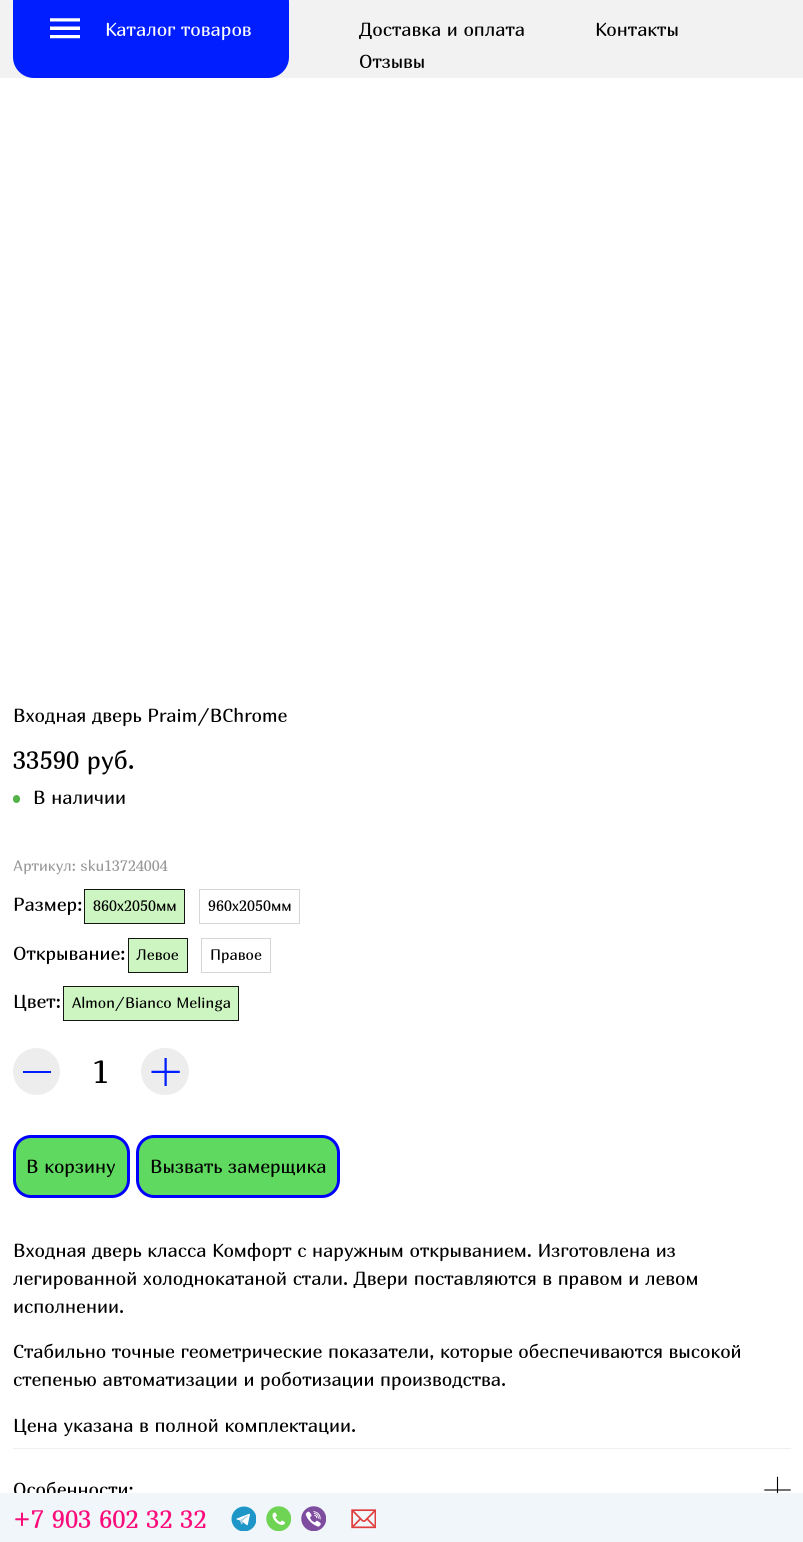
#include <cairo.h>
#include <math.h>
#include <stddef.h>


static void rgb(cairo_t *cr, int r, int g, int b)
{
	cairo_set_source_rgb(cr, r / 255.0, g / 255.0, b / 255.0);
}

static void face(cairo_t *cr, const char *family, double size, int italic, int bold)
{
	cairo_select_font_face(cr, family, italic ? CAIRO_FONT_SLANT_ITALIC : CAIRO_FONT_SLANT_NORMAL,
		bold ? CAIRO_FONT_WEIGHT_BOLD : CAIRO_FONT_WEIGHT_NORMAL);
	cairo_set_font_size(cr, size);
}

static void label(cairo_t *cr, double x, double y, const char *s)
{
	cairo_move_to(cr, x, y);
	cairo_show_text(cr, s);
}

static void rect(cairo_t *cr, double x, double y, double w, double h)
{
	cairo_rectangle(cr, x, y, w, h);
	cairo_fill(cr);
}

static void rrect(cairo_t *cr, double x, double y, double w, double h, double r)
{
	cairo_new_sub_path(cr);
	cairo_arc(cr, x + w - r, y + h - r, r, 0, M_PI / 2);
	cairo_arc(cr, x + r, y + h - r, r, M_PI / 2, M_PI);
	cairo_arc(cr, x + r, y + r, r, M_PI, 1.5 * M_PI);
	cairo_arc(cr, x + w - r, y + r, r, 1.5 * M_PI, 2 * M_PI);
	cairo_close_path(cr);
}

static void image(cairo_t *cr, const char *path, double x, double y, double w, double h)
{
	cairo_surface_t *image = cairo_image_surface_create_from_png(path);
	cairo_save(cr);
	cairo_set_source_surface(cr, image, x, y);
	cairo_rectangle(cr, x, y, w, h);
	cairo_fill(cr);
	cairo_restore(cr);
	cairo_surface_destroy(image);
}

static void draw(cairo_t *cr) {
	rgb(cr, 255, 255, 255);
	cairo_paint(cr);
	rgb(cr, 242, 242, 242);
	rect(cr, 0, 0, 803, 78);
	rgb(cr, 0, 30, 255);
	rrect(cr, 13, -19, 276, 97, 21);
	cairo_fill(cr);
	image(cr, "image0.png", 50, 18, 30, 21);
	face(cr, "Marmelad", 18.75, 0, 0);
	rgb(cr, 255, 255, 255);
	label(cr, 105, 36, "Каталог товаров");
	rgb(cr, 0, 0, 0);
	label(cr, 359, 36, "Доставка и оплата");
	label(cr, 595, 36, "Контакты");
	label(cr, 359, 68, "Отзывы");
	label(cr, 13, 722, "Входная дверь Praim/BChrome");
	face(cr, "Marmelad", 25, 0, 0);
	label(cr, 13, 769, "33590 руб.");
	rgb(cr, 84, 179, 72);
	rrect(cr, 13, 795, 7, 8, 3.5);
	cairo_fill(cr);
	face(cr, "Marmelad", 18.75, 0, 0);
	rgb(cr, 0, 0, 0);
	label(cr, 33, 804, "В наличии");
	face(cr, "Marmelad", 15, 0, 0);
	rgb(cr, 153, 153, 153);
	label(cr, 13, 871, "Артикул: sku13724004");
	face(cr, "Marmelad", 18.75, 0, 0);
	rgb(cr, 0, 0, 0);
	label(cr, 13, 911, "Размер:");
	rgb(cr, 205, 245, 193);
	cairo_rectangle(cr, 84.5, 889.5, 100, 34);
	cairo_fill_preserve(cr);
	rgb(cr, 20, 20, 18);
	cairo_set_line_width(cr, 1);
	cairo_stroke(cr);
	face(cr, "Marmelad", 15, 0, 0);
	rgb(cr, 0, 0, 0);
	label(cr, 93, 911, "860х2050мм");
	cairo_rectangle(cr, 199.5, 889.5, 100, 34);
	rgb(cr, 214, 214, 214);
	cairo_stroke(cr);
	rgb(cr, 0, 0, 0);
	label(cr, 208, 911, "960х2050мм");
	face(cr, "Marmelad", 18.75, 0, 0);
	label(cr, 13, 960, "Открывание:");
	rgb(cr, 205, 245, 193);
	cairo_rectangle(cr, 128.5, 938.5, 59, 34);
	cairo_fill_preserve(cr);
	rgb(cr, 20, 20, 18);
	cairo_stroke(cr);
	face(cr, "Marmelad", 15, 0, 0);
	rgb(cr, 0, 0, 0);
	label(cr, 136, 960, "Левое");
	cairo_rectangle(cr, 201.5, 938.5, 69, 34);
	rgb(cr, 214, 214, 214);
	cairo_stroke(cr);
	rgb(cr, 0, 0, 0);
	label(cr, 210, 960, "Правое");
	face(cr, "Marmelad", 18.75, 0, 0);
	label(cr, 13, 1008, "Цвет:");
	rgb(cr, 205, 245, 193);
	cairo_rectangle(cr, 63.5, 986.5, 175, 34);
	cairo_fill_preserve(cr);
	rgb(cr, 20, 20, 18);
	cairo_stroke(cr);
	face(cr, "Marmelad", 15, 0, 0);
	rgb(cr, 0, 0, 0);
	label(cr, 72, 1008, "Almon/Bianco Melinga");
	rgb(cr, 237, 237, 237);
	cairo_new_path(cr);
	cairo_arc(cr, 36.5, 1071.5, 23.5, 0, 2 * M_PI);
	cairo_fill(cr);
	rgb(cr, 0, 30, 255);
	rect(cr, 23, 1071, 28, 2);
	face(cr, "Marmelad", 32, 0, 0);
	rgb(cr, 0, 0, 0);
	label(cr, 92, 1083, "1");
	rgb(cr, 237, 237, 237);
	rrect(cr, 141, 1048, 48, 47, 23.5);
	cairo_fill(cr);
	image(cr, "image1.png", 151, 1058, 29, 28);
	rgb(cr, 95, 217, 95);
	rrect(cr, 14.5, 1136.5, 114, 60, 16.5);
	cairo_fill_preserve(cr);
	rgb(cr, 0, 0, 255);
	cairo_set_line_width(cr, 3);
	cairo_stroke(cr);
	face(cr, "Marmelad", 18.75, 0, 0);
	rgb(cr, 0, 0, 0);
	label(cr, 26, 1173, "В корзину");
	rgb(cr, 95, 217, 95);
	rrect(cr, 137.5, 1136.5, 201, 60, 16.5);
	cairo_fill_preserve(cr);
	rgb(cr, 0, 0, 255);
	cairo_stroke(cr);
	rgb(cr, 0, 0, 0);
	label(cr, 150, 1173, "Вызвать замерщика");
	label(cr, 13, 1257, "Входная дверь класса Комфорт с наружным открыванием. Изготовлена из");
	label(cr, 13, 1285, "легированной холоднокатаной стали. Двери поставляются в правом и левом");
	label(cr, 13, 1313, "исполнении.");
	label(cr, 13, 1358, "Стабильно точные геометрические показатели, которые обеспечиваются высокой");
	label(cr, 13, 1386, "степенью автоматизации и роботизации производства.");
	label(cr, 13, 1432, "Цена указана в полной комплектации.");
	rgb(cr, 240, 240, 240);
	rect(cr, 13, 1448, 778, 1);
	rgb(cr, 0, 0, 0);
	label(cr, 13, 1496, "Особенности:");
	image(cr, "image2.png", 764, 1476, 27, 17);
	rgb(cr, 241, 246, 251);
	rect(cr, 0, 1493, 803, 49);
	face(cr, "Marmelad", 25, 0, 0);
	rgb(cr, 250, 13, 123);
	label(cr, 13, 1528, "+7 903 602 32 32");
	image(cr, "image3.png", 231, 1506, 25, 25);
	image(cr, "image4.png", 266, 1506, 25, 25);
	image(cr, "image5.png", 301, 1506, 25, 25);
	image(cr, "image6.png", 351, 1509, 25, 20);
}

int main(void) {
	cairo_surface_t *surface = cairo_image_surface_create(CAIRO_FORMAT_RGB24, 803, 1542);
	cairo_t *cr = cairo_create(surface);
	cairo_font_options_t *options = cairo_font_options_create();
	cairo_font_options_set_hint_metrics(options, CAIRO_HINT_METRICS_OFF);
	cairo_font_options_set_hint_style(options, CAIRO_HINT_STYLE_NONE);
	cairo_set_font_options(cr, options);
	cairo_set_miter_limit(cr, 4);
	draw(cr);
	cairo_surface_write_to_png(surface, "render.png");
	cairo_font_options_destroy(options);
	cairo_destroy(cr);
	cairo_surface_destroy(surface);
	return 0;
}
